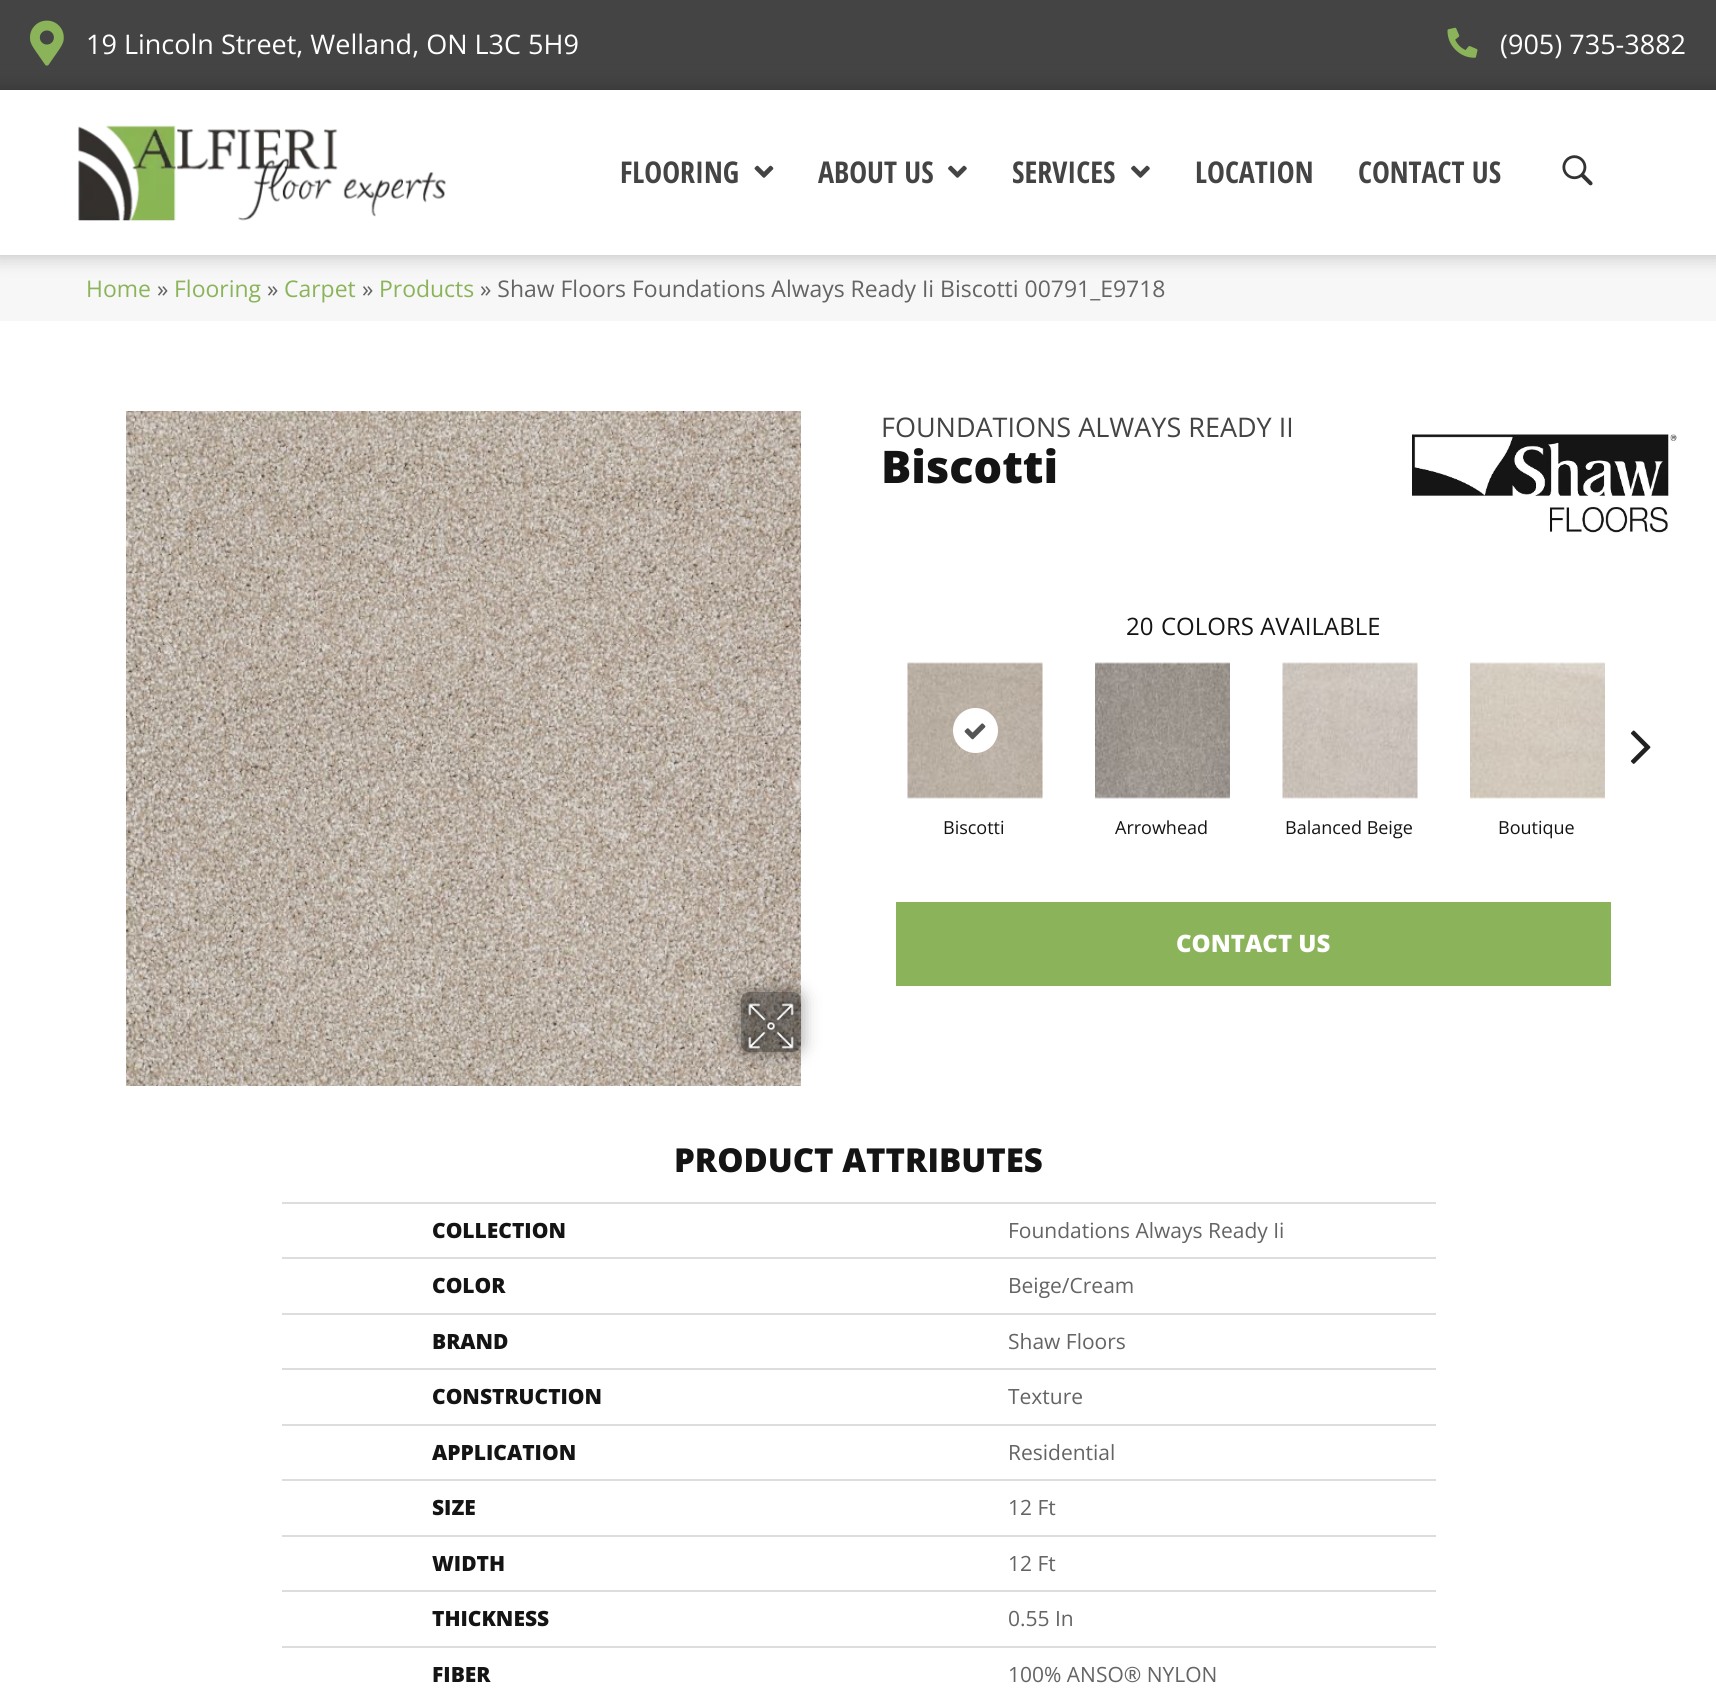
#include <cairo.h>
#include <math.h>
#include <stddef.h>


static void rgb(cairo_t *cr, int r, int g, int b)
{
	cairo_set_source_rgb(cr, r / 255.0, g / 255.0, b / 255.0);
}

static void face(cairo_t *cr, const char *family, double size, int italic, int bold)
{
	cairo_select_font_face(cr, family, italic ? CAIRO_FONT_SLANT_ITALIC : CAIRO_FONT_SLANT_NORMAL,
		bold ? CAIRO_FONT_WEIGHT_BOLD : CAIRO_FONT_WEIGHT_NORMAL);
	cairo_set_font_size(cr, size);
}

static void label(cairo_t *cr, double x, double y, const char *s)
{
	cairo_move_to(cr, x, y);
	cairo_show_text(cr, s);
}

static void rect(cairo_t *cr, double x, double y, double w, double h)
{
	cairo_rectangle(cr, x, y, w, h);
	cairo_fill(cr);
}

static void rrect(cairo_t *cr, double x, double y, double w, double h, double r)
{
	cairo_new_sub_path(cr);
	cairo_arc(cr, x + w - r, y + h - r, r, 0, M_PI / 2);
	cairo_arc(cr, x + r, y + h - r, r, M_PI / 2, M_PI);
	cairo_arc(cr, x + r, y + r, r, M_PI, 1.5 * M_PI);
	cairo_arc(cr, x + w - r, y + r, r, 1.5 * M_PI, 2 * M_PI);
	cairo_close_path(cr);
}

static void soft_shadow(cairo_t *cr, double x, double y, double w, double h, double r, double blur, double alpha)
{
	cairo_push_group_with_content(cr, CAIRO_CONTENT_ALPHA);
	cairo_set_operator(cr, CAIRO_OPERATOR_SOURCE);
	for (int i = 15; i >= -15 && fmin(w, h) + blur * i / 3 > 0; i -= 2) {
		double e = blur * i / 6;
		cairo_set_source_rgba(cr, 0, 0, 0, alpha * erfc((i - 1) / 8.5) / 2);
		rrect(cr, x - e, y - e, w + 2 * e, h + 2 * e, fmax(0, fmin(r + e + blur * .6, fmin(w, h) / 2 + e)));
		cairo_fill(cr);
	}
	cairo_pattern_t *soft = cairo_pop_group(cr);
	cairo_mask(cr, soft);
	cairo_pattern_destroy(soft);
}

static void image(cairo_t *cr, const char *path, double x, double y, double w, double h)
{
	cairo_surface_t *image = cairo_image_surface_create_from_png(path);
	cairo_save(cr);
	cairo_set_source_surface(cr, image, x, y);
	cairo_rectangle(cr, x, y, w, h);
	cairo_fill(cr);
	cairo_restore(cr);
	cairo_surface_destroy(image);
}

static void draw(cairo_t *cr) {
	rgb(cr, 255, 255, 255);
	cairo_paint(cr);
	rgb(cr, 68, 68, 68);
	rect(cr, 0, 0, 1716, 90);
	image(cr, "image0.png", 30, 20, 34, 46);
	face(cr, "Open Sans", 27, 0, 0);
	rgb(cr, 255, 255, 255);
	label(cr, 86, 54, "19 Lincoln Street, Welland, ON L3C 5H9");
	image(cr, "image1.png", 1447, 27, 31, 31);
	label(cr, 1500, 54, "(905) 735-3882");
	rgb(cr, 247, 247, 247);
	rect(cr, 0, 255, 1716, 66);
	cairo_save(cr);
	cairo_set_fill_rule(cr, CAIRO_FILL_RULE_EVEN_ODD);
	cairo_new_path(cr);
	cairo_move_to(cr, 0, 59);
	cairo_line_to(cr, 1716, 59);
	cairo_line_to(cr, 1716, 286);
	cairo_line_to(cr, 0, 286);
	cairo_close_path(cr);
	cairo_move_to(cr, 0, 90);
	cairo_line_to(cr, 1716, 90);
	cairo_line_to(cr, 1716, 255);
	cairo_line_to(cr, 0, 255);
	cairo_close_path(cr);
	cairo_clip(cr);
	rgb(cr, 0, 0, 0);
	soft_shadow(cr, -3, 87, 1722, 171, 0, 9, 0.2);
	cairo_restore(cr);
	image(cr, "image2.png", 78, 125, 368, 96);
	face(cr, "Open Sans Condensed", 30, 0, 1);
	rgb(cr, 68, 68, 68);
	label(cr, 620, 183, "FLOORING");
	image(cr, "image3.png", 754, 165, 20, 13);
	label(cr, 818, 183, "ABOUT US");
	image(cr, "image4.png", 948, 165, 19, 13);
	label(cr, 1012, 183, "SERVICES");
	image(cr, "image4.png", 1131, 165, 19, 13);
	label(cr, 1195, 183, "LOCATION");
	label(cr, 1358, 183, "CONTACT US");
	image(cr, "image5.png", 1562, 155, 31, 31);
	face(cr, "Open Sans", 22.95, 0, 0);
	rgb(cr, 139, 180, 90);
	label(cr, 86, 297, "Home");
	rgb(cr, 100, 100, 100);
	label(cr, 157, 297, "»");
	rgb(cr, 139, 180, 90);
	label(cr, 174, 297, "Flooring");
	rgb(cr, 100, 100, 100);
	label(cr, 267, 297, "»");
	rgb(cr, 139, 180, 90);
	label(cr, 284, 297, "Carpet");
	rgb(cr, 100, 100, 100);
	label(cr, 362, 297, "»");
	rgb(cr, 139, 180, 90);
	label(cr, 379, 297, "Products");
	rgb(cr, 100, 100, 100);
	label(cr, 480, 297, "» Shaw Floors Foundations Always Ready Ii Biscotti 00791_E9718");
	image(cr, "image6.png", 126, 411, 675, 675);
	cairo_save(cr);
	cairo_set_fill_rule(cr, CAIRO_FILL_RULE_EVEN_ODD);
	cairo_new_path(cr);
	cairo_move_to(cr, 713, 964);
	cairo_line_to(cr, 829, 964);
	cairo_line_to(cr, 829, 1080);
	cairo_line_to(cr, 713, 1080);
	cairo_close_path(cr);
	cairo_move_to(cr, 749, 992);
	cairo_line_to(cr, 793, 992);
	cairo_curve_to(cr, 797.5, 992, 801, 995.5, 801, 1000);
	cairo_line_to(cr, 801, 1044);
	cairo_curve_to(cr, 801, 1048.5, 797.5, 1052, 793, 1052);
	cairo_line_to(cr, 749, 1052);
	cairo_curve_to(cr, 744.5, 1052, 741, 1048.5, 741, 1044);
	cairo_line_to(cr, 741, 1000);
	cairo_curve_to(cr, 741, 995.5, 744.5, 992, 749, 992);
	cairo_close_path(cr);
	cairo_clip(cr);
	rgb(cr, 0, 0, 0);
	soft_shadow(cr, 741, 992, 60, 60, 8, 9, 0.41);
	cairo_restore(cr);
	cairo_set_source_rgba(cr, 0, 0, 0, 0.4);
	rrect(cr, 741, 992, 60, 60, 8);
	cairo_fill(cr);
	image(cr, "image7.png", 743, 998, 56, 56);
	face(cr, "Open Sans", 27, 0, 0);
	rgb(cr, 68, 68, 68);
	label(cr, 881, 437, "FOUNDATIONS ALWAYS READY II");
	face(cr, "Open Sans ExtraBold", 45, 0, 0);
	rgb(cr, 20, 20, 20);
	label(cr, 881, 483, "Biscotti");
	image(cr, "image8.png", 1412, 434, 265, 99);
	face(cr, "Open Sans", 24, 0, 0);
	label(cr, 1126, 635, "20");
	label(cr, 1161, 635, "COLORS AVAILABLE");
	image(cr, "image9.png", 1630, 730, 21, 34);
	image(cr, "image10.png", 907, 662, 136, 137);
	rgb(cr, 255, 255, 255);
	cairo_arc(cr, 975.5, 730.5, 22.5, 0, 2 * M_PI);
	cairo_fill(cr);
	image(cr, "image11.png", 964, 723, 22, 17);
	face(cr, "Open Sans", 18, 0, 0);
	rgb(cr, 20, 20, 20);
	label(cr, 943, 834, "Biscotti");
	image(cr, "image12.png", 1095, 662, 135, 137);
	label(cr, 1115, 834, "Arrowhead");
	image(cr, "image13.png", 1282, 662, 136, 137);
	label(cr, 1285, 834, "Balanced Beige");
	image(cr, "image14.png", 1470, 662, 135, 137);
	label(cr, 1498, 834, "Boutique");
	rgb(cr, 139, 180, 90);
	rect(cr, 896, 902, 715, 84);
	face(cr, "Open Sans ExtraBold", 24, 0, 0);
	rgb(cr, 255, 255, 255);
	label(cr, 1176, 952, "CONTACT US");
	face(cr, "Open Sans ExtraBold", 33, 0, 0);
	rgb(cr, 20, 20, 20);
	label(cr, 674, 1172, "PRODUCT ATTRIBUTES");
	face(cr, "Open Sans ExtraBold", 21, 0, 0);
	label(cr, 432, 1238, "COLLECTION");
	rgb(cr, 221, 221, 221);
	rect(cr, 282, 1202, 1154, 2);
	face(cr, "Open Sans", 21, 0, 0);
	rgb(cr, 100, 100, 100);
	label(cr, 1008, 1238, "Foundations Always Ready Ii");
	face(cr, "Open Sans ExtraBold", 21, 0, 0);
	rgb(cr, 20, 20, 20);
	label(cr, 432, 1293, "COLOR");
	rgb(cr, 221, 221, 221);
	rect(cr, 282, 1257, 1154, 2);
	face(cr, "Open Sans", 21, 0, 0);
	rgb(cr, 100, 100, 100);
	label(cr, 1008, 1293, "Beige/Cream");
	face(cr, "Open Sans ExtraBold", 21, 0, 0);
	rgb(cr, 20, 20, 20);
	label(cr, 432, 1349, "BRAND");
	rgb(cr, 221, 221, 221);
	rect(cr, 282, 1313, 1154, 2);
	face(cr, "Open Sans", 21, 0, 0);
	rgb(cr, 100, 100, 100);
	label(cr, 1008, 1349, "Shaw Floors");
	face(cr, "Open Sans ExtraBold", 21, 0, 0);
	rgb(cr, 20, 20, 20);
	label(cr, 432, 1404, "CONSTRUCTION");
	rgb(cr, 221, 221, 221);
	rect(cr, 282, 1368, 1154, 2);
	face(cr, "Open Sans", 21, 0, 0);
	rgb(cr, 100, 100, 100);
	label(cr, 1008, 1404, "Texture");
	face(cr, "Open Sans ExtraBold", 21, 0, 0);
	rgb(cr, 20, 20, 20);
	label(cr, 432, 1460, "APPLICATION");
	rgb(cr, 221, 221, 221);
	rect(cr, 282, 1424, 1154, 2);
	face(cr, "Open Sans", 21, 0, 0);
	rgb(cr, 100, 100, 100);
	label(cr, 1008, 1460, "Residential");
	face(cr, "Open Sans ExtraBold", 21, 0, 0);
	rgb(cr, 20, 20, 20);
	label(cr, 432, 1515, "SIZE");
	rgb(cr, 221, 221, 221);
	rect(cr, 282, 1479, 1154, 2);
	face(cr, "Open Sans", 21, 0, 0);
	rgb(cr, 100, 100, 100);
	label(cr, 1008, 1515, "12 Ft");
	face(cr, "Open Sans ExtraBold", 21, 0, 0);
	rgb(cr, 20, 20, 20);
	label(cr, 432, 1571, "WIDTH");
	rgb(cr, 221, 221, 221);
	rect(cr, 282, 1535, 1154, 2);
	face(cr, "Open Sans", 21, 0, 0);
	rgb(cr, 100, 100, 100);
	label(cr, 1008, 1571, "12 Ft");
	face(cr, "Open Sans ExtraBold", 21, 0, 0);
	rgb(cr, 20, 20, 20);
	label(cr, 432, 1626, "THICKNESS");
	rgb(cr, 221, 221, 221);
	rect(cr, 282, 1590, 1154, 2);
	face(cr, "Open Sans", 21, 0, 0);
	rgb(cr, 100, 100, 100);
	label(cr, 1008, 1626, "0.55 In");
	face(cr, "Open Sans ExtraBold", 21, 0, 0);
	rgb(cr, 20, 20, 20);
	label(cr, 432, 1682, "FIBER");
	rgb(cr, 221, 221, 221);
	rect(cr, 282, 1646, 1154, 2);
	face(cr, "Open Sans", 21, 0, 0);
	rgb(cr, 100, 100, 100);
	label(cr, 1008, 1682, "100% ANSO® NYLON");
}

int main(void) {
	cairo_surface_t *surface = cairo_image_surface_create(CAIRO_FORMAT_RGB24, 1716, 1688);
	cairo_t *cr = cairo_create(surface);
	cairo_font_options_t *options = cairo_font_options_create();
	cairo_font_options_set_hint_metrics(options, CAIRO_HINT_METRICS_OFF);
	cairo_font_options_set_hint_style(options, CAIRO_HINT_STYLE_NONE);
	cairo_set_font_options(cr, options);
	cairo_set_miter_limit(cr, 4);
	draw(cr);
	cairo_surface_write_to_png(surface, "render.png");
	cairo_font_options_destroy(options);
	cairo_destroy(cr);
	cairo_surface_destroy(surface);
	return 0;
}
